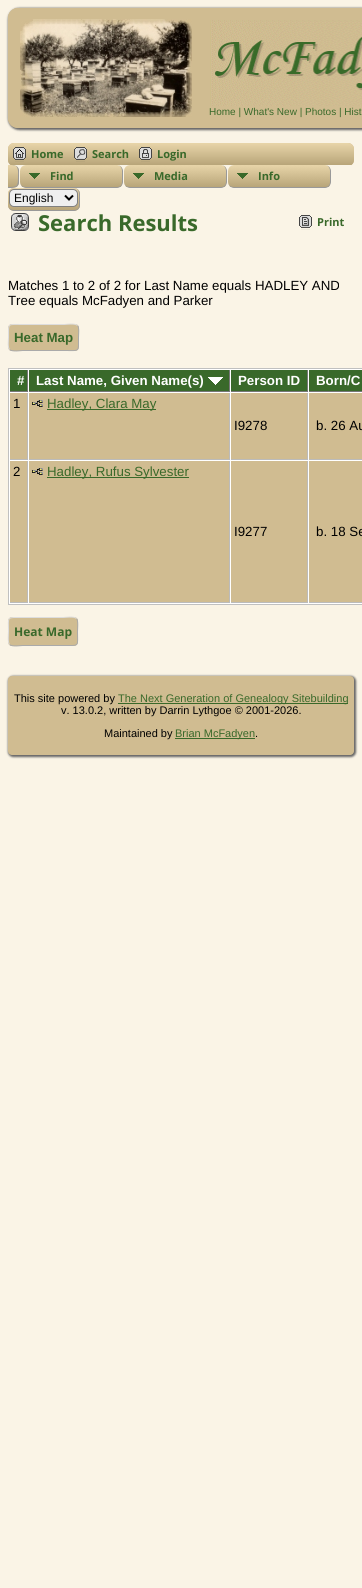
#include <cairo.h>
#include <math.h>
#include <stddef.h>


static void rgb(cairo_t *cr, int r, int g, int b)
{
	cairo_set_source_rgb(cr, r / 255.0, g / 255.0, b / 255.0);
}

static void face(cairo_t *cr, const char *family, double size, int italic, int bold)
{
	cairo_select_font_face(cr, family, italic ? CAIRO_FONT_SLANT_ITALIC : CAIRO_FONT_SLANT_NORMAL,
		bold ? CAIRO_FONT_WEIGHT_BOLD : CAIRO_FONT_WEIGHT_NORMAL);
	cairo_set_font_size(cr, size);
}

static void label(cairo_t *cr, double x, double y, const char *s)
{
	cairo_move_to(cr, x, y);
	cairo_show_text(cr, s);
}

static void rect(cairo_t *cr, double x, double y, double w, double h)
{
	cairo_rectangle(cr, x, y, w, h);
	cairo_fill(cr);
}

static void rrect(cairo_t *cr, double x, double y, double w, double h, double r)
{
	cairo_new_sub_path(cr);
	cairo_arc(cr, x + w - r, y + h - r, r, 0, M_PI / 2);
	cairo_arc(cr, x + r, y + h - r, r, M_PI / 2, M_PI);
	cairo_arc(cr, x + r, y + r, r, M_PI, 1.5 * M_PI);
	cairo_arc(cr, x + w - r, y + r, r, 1.5 * M_PI, 2 * M_PI);
	cairo_close_path(cr);
}

static void soft_shadow(cairo_t *cr, double x, double y, double w, double h, double r, double blur, double alpha)
{
	cairo_push_group_with_content(cr, CAIRO_CONTENT_ALPHA);
	cairo_set_operator(cr, CAIRO_OPERATOR_SOURCE);
	for (int i = 15; i >= -15 && fmin(w, h) + blur * i / 3 > 0; i -= 2) {
		double e = blur * i / 6;
		cairo_set_source_rgba(cr, 0, 0, 0, alpha * erfc((i - 1) / 8.5) / 2);
		rrect(cr, x - e, y - e, w + 2 * e, h + 2 * e, fmax(0, fmin(r + e + blur * .6, fmin(w, h) / 2 + e)));
		cairo_fill(cr);
	}
	cairo_pattern_t *soft = cairo_pop_group(cr);
	cairo_mask(cr, soft);
	cairo_pattern_destroy(soft);
}

static void image(cairo_t *cr, const char *path, double x, double y, double w, double h)
{
	cairo_surface_t *image = cairo_image_surface_create_from_png(path);
	cairo_save(cr);
	cairo_set_source_surface(cr, image, x, y);
	cairo_rectangle(cr, x, y, w, h);
	cairo_fill(cr);
	cairo_restore(cr);
	cairo_surface_destroy(image);
}

static void draw(cairo_t *cr) {
	cairo_pattern_t *gradient;
	rgb(cr, 250, 244, 230);
	cairo_paint(cr);
	rgb(cr, 102, 102, 102);
	soft_shadow(cr, 8, 8, 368, 122, 11, 1, 1);
	rgb(cr, 208, 188, 145);
	rrect(cr, 8, 8, 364, 120, 10);
	cairo_fill(cr);
	rrect(cr, 8, 8, 196, 120, 10);
	cairo_fill(cr);
	image(cr, "image0.png", 20, 19, 172, 98);
	image(cr, "image1.png", 210, 20, 152, 86);
	face(cr, "Liberation Sans", 10, 0, 0);
	rgb(cr, 57, 105, 42);
	label(cr, 209, 115, "Home | What's New | Photos | Hist");
	rgb(cr, 208, 188, 145);
	rrect(cr, 8, 143, 346, 23, 6);
	cairo_fill(cr);
	cairo_save(cr);
	rrect(cr, 8, 143, 346, 23, 6);
	cairo_clip(cr);
	gradient = cairo_pattern_create_linear(181, 143, 181, 165);
	cairo_pattern_add_color_stop_rgba(gradient, 0, 0.91, 0.835, 0.663, 1);
	cairo_pattern_add_color_stop_rgba(gradient, 1, 0.722, 0.647, 0.475, 1);
	cairo_set_source(cr, gradient);
	cairo_pattern_destroy(gradient);
	cairo_new_path(cr);
	cairo_move_to(cr, 14, 143);
	cairo_line_to(cr, 348, 143);
	cairo_curve_to(cr, 351.5, 143, 354, 145.5, 354, 149);
	cairo_line_to(cr, 354, 165);
	cairo_line_to(cr, 8, 165);
	cairo_line_to(cr, 8, 149);
	cairo_curve_to(cr, 8, 145.5, 10.5, 143, 14, 143);
	cairo_close_path(cr);
	cairo_fill(cr);
	cairo_restore(cr);
	image(cr, "image2.png", 13, 147, 13, 15);
	face(cr, "Open Sans", 11, 0, 1);
	rgb(cr, 57, 105, 42);
	label(cr, 31, 158, "Home");
	image(cr, "image3.png", 74, 147, 13, 15);
	label(cr, 92, 158, "Search");
	image(cr, "image4.png", 139, 147, 13, 15);
	label(cr, 157, 158, "Login");
	rgb(cr, 250, 244, 230);
	rect(cr, 11, 165, 340, 1);
	cairo_save(cr);
	cairo_new_path(cr);
	cairo_move_to(cr, 8, 165);
	cairo_line_to(cr, 13, 165);
	cairo_curve_to(cr, 16.5, 165, 19, 167.5, 19, 171);
	cairo_line_to(cr, 19, 182);
	cairo_curve_to(cr, 19, 185.5, 16.5, 188, 13, 188);
	cairo_line_to(cr, 8, 188);
	cairo_close_path(cr);
	cairo_clip(cr);
	gradient = cairo_pattern_create_linear(13, 165, 13, 187);
	cairo_pattern_add_color_stop_rgba(gradient, 0, 0.91, 0.835, 0.663, 1);
	cairo_pattern_add_color_stop_rgba(gradient, 1, 0.722, 0.647, 0.475, 1);
	cairo_set_source(cr, gradient);
	cairo_pattern_destroy(gradient);
	rect(cr, 8, 165, 11, 22);
	gradient = cairo_pattern_create_linear(13, 187, 13, 209);
	cairo_pattern_add_color_stop_rgba(gradient, 0, 0.91, 0.835, 0.663, 1);
	cairo_pattern_add_color_stop_rgba(gradient, 1, 0.722, 0.647, 0.475, 1);
	cairo_set_source(cr, gradient);
	cairo_pattern_destroy(gradient);
	rect(cr, 8, 187, 11, 1);
	cairo_restore(cr);
	rgb(cr, 153, 153, 153);
	cairo_set_fill_rule(cr, CAIRO_FILL_RULE_EVEN_ODD);
	cairo_new_path(cr);
	cairo_move_to(cr, 8, 165);
	cairo_curve_to(cr, 12, 165, 18, 164.5, 19, 170);
	cairo_line_to(cr, 19, 183);
	cairo_curve_to(cr, 18, 188.5, 12, 188, 8, 188);
	cairo_close_path(cr);
	cairo_move_to(cr, 8, 165);
	cairo_line_to(cr, 14, 165);
	cairo_curve_to(cr, 19, 166.5, 18, 173, 18, 176.5);
	cairo_curve_to(cr, 18, 186.5, 17.5, 187, 8, 187);
	cairo_close_path(cr);
	cairo_fill(cr);
	image(cr, "image5.png", 20, 165, 102, 22);
	cairo_new_path(cr);
	cairo_move_to(cr, 26, 165);
	cairo_line_to(cr, 117, 165);
	cairo_curve_to(cr, 120, 165, 123, 168, 123, 171);
	cairo_line_to(cr, 123, 182);
	cairo_curve_to(cr, 123, 185, 120, 188, 117, 188);
	cairo_line_to(cr, 26, 188);
	cairo_curve_to(cr, 23, 188, 20, 185, 20, 182);
	cairo_line_to(cr, 20, 171);
	cairo_curve_to(cr, 20, 168, 23, 165, 26, 165);
	cairo_close_path(cr);
	cairo_move_to(cr, 26, 165);
	cairo_line_to(cr, 117, 165);
	cairo_curve_to(cr, 120, 165, 122, 168, 122, 171);
	cairo_line_to(cr, 122, 182);
	cairo_curve_to(cr, 122, 185, 120, 187, 117, 187);
	cairo_line_to(cr, 26, 187);
	cairo_curve_to(cr, 23, 187, 20, 185, 20, 182);
	cairo_line_to(cr, 20, 171);
	cairo_curve_to(cr, 20, 168, 23, 165, 26, 165);
	cairo_close_path(cr);
	cairo_fill(cr);
	rgb(cr, 57, 105, 42);
	label(cr, 50, 180, "Find");
	image(cr, "image5.png", 124, 165, 102, 22);
	rgb(cr, 153, 153, 153);
	cairo_new_path(cr);
	cairo_move_to(cr, 130, 165);
	cairo_line_to(cr, 221, 165);
	cairo_curve_to(cr, 224, 165, 227, 168, 227, 171);
	cairo_line_to(cr, 227, 182);
	cairo_curve_to(cr, 227, 185, 224, 188, 221, 188);
	cairo_line_to(cr, 130, 188);
	cairo_curve_to(cr, 127, 188, 124, 185, 124, 182);
	cairo_line_to(cr, 124, 171);
	cairo_curve_to(cr, 124, 168, 127, 165, 130, 165);
	cairo_close_path(cr);
	cairo_move_to(cr, 130, 165);
	cairo_line_to(cr, 221, 165);
	cairo_curve_to(cr, 224, 165, 226, 168, 226, 171);
	cairo_line_to(cr, 226, 182);
	cairo_curve_to(cr, 226, 185, 224, 187, 221, 187);
	cairo_line_to(cr, 130, 187);
	cairo_curve_to(cr, 127, 187, 124, 185, 124, 182);
	cairo_line_to(cr, 124, 171);
	cairo_curve_to(cr, 124, 168, 127, 165, 130, 165);
	cairo_close_path(cr);
	cairo_fill(cr);
	rgb(cr, 57, 105, 42);
	label(cr, 154, 180, "Media");
	image(cr, "image6.png", 228, 165, 102, 22);
	rgb(cr, 153, 153, 153);
	cairo_new_path(cr);
	cairo_move_to(cr, 234, 165);
	cairo_line_to(cr, 325, 165);
	cairo_curve_to(cr, 328, 165, 331, 168, 331, 171);
	cairo_line_to(cr, 331, 182);
	cairo_curve_to(cr, 331, 185, 328, 188, 325, 188);
	cairo_line_to(cr, 234, 188);
	cairo_curve_to(cr, 231, 188, 228, 185, 228, 182);
	cairo_line_to(cr, 228, 171);
	cairo_curve_to(cr, 228, 168, 231, 165, 234, 165);
	cairo_close_path(cr);
	cairo_move_to(cr, 234, 165);
	cairo_line_to(cr, 325, 165);
	cairo_curve_to(cr, 328, 165, 330, 168, 330, 171);
	cairo_line_to(cr, 330, 182);
	cairo_curve_to(cr, 330, 185, 328, 187, 325, 187);
	cairo_line_to(cr, 234, 187);
	cairo_curve_to(cr, 231, 187, 228, 185, 228, 182);
	cairo_line_to(cr, 228, 171);
	cairo_curve_to(cr, 228, 168, 231, 165, 234, 165);
	cairo_close_path(cr);
	cairo_fill(cr);
	rgb(cr, 57, 105, 42);
	label(cr, 258, 180, "Info");
	rgb(cr, 208, 188, 145);
	rrect(cr, 8, 188, 72, 23, 6);
	cairo_fill(cr);
	cairo_save(cr);
	cairo_set_fill_rule(cr, CAIRO_FILL_RULE_WINDING);
	rrect(cr, 8, 188, 72, 23, 6);
	cairo_clip(cr);
	gradient = cairo_pattern_create_linear(44, 188, 44, 210);
	cairo_pattern_add_color_stop_rgba(gradient, 0, 0.91, 0.835, 0.663, 1);
	cairo_pattern_add_color_stop_rgba(gradient, 1, 0.722, 0.647, 0.475, 1);
	cairo_set_source(cr, gradient);
	cairo_pattern_destroy(gradient);
	cairo_new_path(cr);
	cairo_move_to(cr, 14, 188);
	cairo_line_to(cr, 74, 188);
	cairo_curve_to(cr, 77.5, 188, 80, 190.5, 80, 194);
	cairo_line_to(cr, 80, 210);
	cairo_line_to(cr, 8, 210);
	cairo_line_to(cr, 8, 194);
	cairo_curve_to(cr, 8, 190.5, 10.5, 188, 14, 188);
	cairo_close_path(cr);
	cairo_fill(cr);
	cairo_restore(cr);
	rgb(cr, 153, 153, 153);
	cairo_new_path(cr);
	cairo_move_to(cr, 14, 188);
	cairo_line_to(cr, 74, 188);
	cairo_curve_to(cr, 77, 188, 80, 191, 80, 194);
	cairo_line_to(cr, 80, 205);
	cairo_curve_to(cr, 80, 208, 77, 211, 74, 211);
	cairo_line_to(cr, 14, 211);
	cairo_curve_to(cr, 11, 211, 8, 208, 8, 205);
	cairo_line_to(cr, 8, 194);
	cairo_curve_to(cr, 8, 191, 11, 188, 14, 188);
	cairo_close_path(cr);
	cairo_move_to(cr, 14, 188);
	cairo_line_to(cr, 74, 188);
	cairo_curve_to(cr, 77, 188, 79, 191, 79, 194);
	cairo_line_to(cr, 79, 205);
	cairo_curve_to(cr, 79, 208, 77, 210, 74, 210);
	cairo_line_to(cr, 14, 210);
	cairo_curve_to(cr, 11, 210, 8, 208, 8, 205);
	cairo_line_to(cr, 8, 194);
	cairo_curve_to(cr, 8, 191, 11, 188, 14, 188);
	cairo_close_path(cr);
	cairo_fill(cr);
	rgb(cr, 239, 239, 239);
	rrect(cr, 9.5, 189.5, 68, 17, 4.5);
	cairo_fill_preserve(cr);
	rgb(cr, 128, 128, 128);
	cairo_set_line_width(cr, 1);
	cairo_stroke(cr);
	cairo_new_path(cr);
	cairo_move_to(cr, 65, 195.5);
	cairo_line_to(cr, 69, 199.5);
	cairo_line_to(cr, 73, 195.5);
	rgb(cr, 0, 0, 0);
	cairo_set_line_width(cr, 2);
	cairo_stroke(cr);
	face(cr, "Liberation Sans", 12, 0, 0);
	label(cr, 14, 202, "English");
	image(cr, "image7.png", 11, 213, 18, 18);
	face(cr, "Open Sans", 22, 0, 1);
	rgb(cr, 57, 105, 42);
	label(cr, 38, 231, "Search Results");
	image(cr, "image8.png", 299, 215, 13, 15);
	face(cr, "Open Sans", 11, 0, 1);
	label(cr, 317, 226, "Print");
	face(cr, "Liberation Sans", 13.3, 0, 0);
	rgb(cr, 0, 0, 0);
	label(cr, 8, 290, "Matches 1 to 2 of 2 for Last Name equals HADLEY AND");
	label(cr, 8, 305, "Tree equals McFadyen and Parker");
	rgb(cr, 208, 188, 145);
	rrect(cr, 8, 324, 71, 27, 4);
	cairo_fill(cr);
	cairo_new_path(cr);
	cairo_move_to(cr, 77.5, 325.5);
	cairo_curve_to(cr, 79.5, 327.5, 78.5, 335, 78.5, 337.5);
	cairo_curve_to(cr, 78.5, 352.5, 80, 350.5, 64.5, 350.5);
	cairo_line_to(cr, 22.5, 350.5);
	cairo_curve_to(cr, 21.5, 350.5, 12, 352, 9.5, 349.5);
	rgb(cr, 170, 170, 170);
	cairo_set_line_width(cr, 1);
	cairo_stroke(cr);
	cairo_new_path(cr);
	cairo_move_to(cr, 9.5, 349.5);
	cairo_curve_to(cr, 7.5, 347.5, 8.5, 340, 8.5, 337.5);
	cairo_curve_to(cr, 8.5, 322.5, 7, 324.5, 22.5, 324.5);
	cairo_line_to(cr, 64.5, 324.5);
	cairo_curve_to(cr, 65.5, 324.5, 75, 323, 77.5, 325.5);
	rgb(cr, 221, 221, 221);
	cairo_stroke(cr);
	face(cr, "Liberation Sans", 13.3, 0, 1);
	rgb(cr, 57, 105, 42);
	label(cr, 14, 342, "Heat Map");
	rgb(cr, 255, 255, 255);
	cairo_rectangle(cr, 8.5, 368.5, 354, 236);
	cairo_fill_preserve(cr);
	rgb(cr, 192, 192, 192);
	cairo_stroke(cr);
	rgb(cr, 57, 105, 42);
	rect(cr, 10, 370, 17, 21);
	rgb(cr, 119, 119, 119);
	rect(cr, 27, 370, 1, 22);
	rect(cr, 10, 391, 18, 1);
	rgb(cr, 255, 255, 255);
	label(cr, 17, 385, "#");
	rgb(cr, 57, 105, 42);
	rect(cr, 29, 370, 200, 21);
	rgb(cr, 119, 119, 119);
	rect(cr, 229, 370, 1, 22);
	rect(cr, 29, 391, 201, 1);
	rgb(cr, 255, 255, 255);
	label(cr, 36, 385, "Last Name, Given Name(s)");
	image(cr, "image9.png", 208, 377, 15, 8);
	rgb(cr, 57, 105, 42);
	rect(cr, 231, 370, 76, 21);
	rgb(cr, 119, 119, 119);
	rect(cr, 307, 370, 1, 22);
	rect(cr, 231, 391, 77, 1);
	rgb(cr, 255, 255, 255);
	label(cr, 238, 385, "Person ID");
	rgb(cr, 57, 105, 42);
	rect(cr, 309, 370, 53, 21);
	rgb(cr, 119, 119, 119);
	rect(cr, 309, 391, 53, 1);
	rgb(cr, 255, 255, 255);
	label(cr, 316, 385, "Born/C");
	rgb(cr, 208, 188, 145);
	rect(cr, 10, 393, 17, 66);
	rgb(cr, 187, 187, 187);
	rect(cr, 27, 393, 1, 67);
	rect(cr, 10, 459, 18, 1);
	face(cr, "Liberation Sans", 13.3, 0, 0);
	rgb(cr, 0, 0, 0);
	label(cr, 13, 408, "1");
	rgb(cr, 208, 188, 145);
	rect(cr, 29, 393, 200, 66);
	rgb(cr, 187, 187, 187);
	rect(cr, 229, 393, 1, 67);
	rect(cr, 29, 459, 201, 1);
	image(cr, "image10.png", 32, 400, 11, 7);
	rgb(cr, 57, 105, 42);
	rect(cr, 47, 409, 109, 1);
	label(cr, 47, 408, "Hadley, Clara May");
	rgb(cr, 208, 188, 145);
	rect(cr, 231, 393, 76, 66);
	rgb(cr, 187, 187, 187);
	rect(cr, 307, 393, 1, 67);
	rect(cr, 231, 459, 77, 1);
	rgb(cr, 0, 0, 0);
	label(cr, 234, 430, "I9278");
	rgb(cr, 208, 188, 145);
	rect(cr, 309, 393, 53, 66);
	rgb(cr, 187, 187, 187);
	rect(cr, 309, 459, 53, 1);
	rgb(cr, 0, 0, 0);
	label(cr, 316, 430, "b. 26 Au");
	rgb(cr, 208, 188, 145);
	rect(cr, 10, 461, 17, 141);
	rgb(cr, 187, 187, 187);
	rect(cr, 27, 461, 1, 142);
	rect(cr, 10, 602, 18, 1);
	rgb(cr, 0, 0, 0);
	label(cr, 13, 476, "2");
	rgb(cr, 208, 188, 145);
	rect(cr, 29, 461, 200, 141);
	rgb(cr, 187, 187, 187);
	rect(cr, 229, 461, 1, 142);
	rect(cr, 29, 602, 201, 1);
	image(cr, "image10.png", 32, 468, 11, 7);
	rgb(cr, 57, 105, 42);
	rect(cr, 47, 477, 142, 1);
	label(cr, 47, 476, "Hadley, Rufus Sylvester");
	rgb(cr, 208, 188, 145);
	rect(cr, 231, 461, 76, 141);
	rgb(cr, 187, 187, 187);
	rect(cr, 307, 461, 1, 142);
	rect(cr, 231, 602, 77, 1);
	rgb(cr, 0, 0, 0);
	label(cr, 234, 536, "I9277");
	rgb(cr, 208, 188, 145);
	rect(cr, 309, 461, 53, 141);
	rgb(cr, 187, 187, 187);
	rect(cr, 309, 602, 53, 1);
	rgb(cr, 0, 0, 0);
	label(cr, 316, 536, "b. 18 Se");
	rgb(cr, 208, 188, 145);
	rrect(cr, 8, 617, 70, 29, 4);
	cairo_fill(cr);
	cairo_new_path(cr);
	cairo_move_to(cr, 76.5, 618.5);
	cairo_curve_to(cr, 78.5, 620.5, 77.5, 629, 77.5, 631.5);
	cairo_curve_to(cr, 77.5, 647, 80, 645.5, 63.5, 645.5);
	cairo_line_to(cr, 22.5, 645.5);
	cairo_curve_to(cr, 21, 645.5, 12, 647, 9.5, 644.5);
	rgb(cr, 170, 170, 170);
	cairo_stroke(cr);
	cairo_new_path(cr);
	cairo_move_to(cr, 9.5, 644.5);
	cairo_curve_to(cr, 7.5, 642.5, 8.5, 634, 8.5, 631.5);
	cairo_curve_to(cr, 8.5, 616, 6, 617.5, 22.5, 617.5);
	cairo_line_to(cr, 63.5, 617.5);
	cairo_curve_to(cr, 65, 617.5, 74, 616, 76.5, 618.5);
	rgb(cr, 221, 221, 221);
	cairo_stroke(cr);
	face(cr, "Open Sans", 12, 0, 1);
	rgb(cr, 57, 105, 42);
	label(cr, 14, 636, "Heat Map");
	rgb(cr, 102, 102, 102);
	soft_shadow(cr, 8, 676, 348, 81, 5, 1, 1);
	rgb(cr, 208, 188, 145);
	rrect(cr, 8, 676, 346, 79, 4);
	cairo_fill(cr);
	face(cr, "Liberation Sans", 11, 0, 0);
	rgb(cr, 0, 0, 0);
	label(cr, 14, 702, "This site powered by");
	rgb(cr, 57, 105, 42);
	rect(cr, 118, 703, 230, 1);
	label(cr, 118, 702, "The Next Generation of Genealogy Sitebuilding");
	rgb(cr, 0, 0, 0);
	label(cr, 61, 714, "v. 13.0.2, written by Darrin Lythgoe © 2001-2026.");
	label(cr, 104, 737, "Maintained by");
	rgb(cr, 57, 105, 42);
	rect(cr, 175, 738, 80, 1);
	label(cr, 175, 737, "Brian McFadyen");
	rgb(cr, 0, 0, 0);
	label(cr, 255, 737, ".");
}

int main(void) {
	cairo_surface_t *surface = cairo_image_surface_create(CAIRO_FORMAT_RGB24, 362, 1588);
	cairo_t *cr = cairo_create(surface);
	cairo_font_options_t *options = cairo_font_options_create();
	cairo_font_options_set_hint_metrics(options, CAIRO_HINT_METRICS_OFF);
	cairo_font_options_set_hint_style(options, CAIRO_HINT_STYLE_NONE);
	cairo_set_font_options(cr, options);
	cairo_set_miter_limit(cr, 4);
	draw(cr);
	cairo_surface_write_to_png(surface, "render.png");
	cairo_font_options_destroy(options);
	cairo_destroy(cr);
	cairo_surface_destroy(surface);
	return 0;
}
